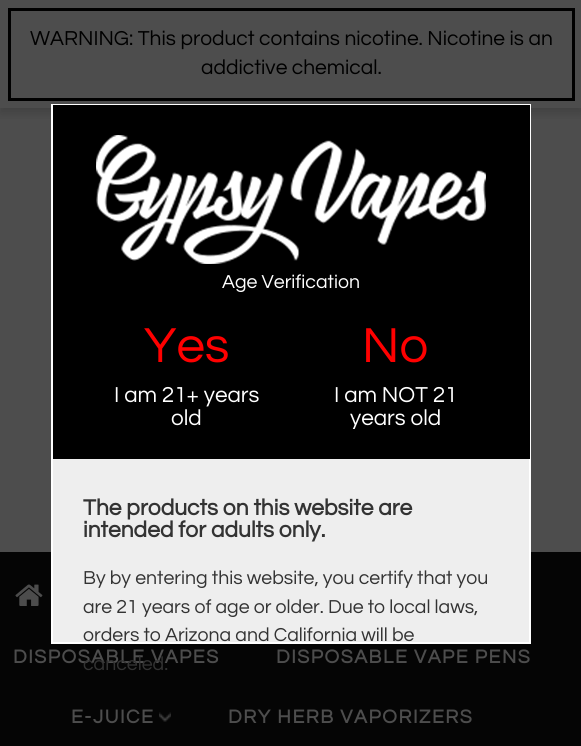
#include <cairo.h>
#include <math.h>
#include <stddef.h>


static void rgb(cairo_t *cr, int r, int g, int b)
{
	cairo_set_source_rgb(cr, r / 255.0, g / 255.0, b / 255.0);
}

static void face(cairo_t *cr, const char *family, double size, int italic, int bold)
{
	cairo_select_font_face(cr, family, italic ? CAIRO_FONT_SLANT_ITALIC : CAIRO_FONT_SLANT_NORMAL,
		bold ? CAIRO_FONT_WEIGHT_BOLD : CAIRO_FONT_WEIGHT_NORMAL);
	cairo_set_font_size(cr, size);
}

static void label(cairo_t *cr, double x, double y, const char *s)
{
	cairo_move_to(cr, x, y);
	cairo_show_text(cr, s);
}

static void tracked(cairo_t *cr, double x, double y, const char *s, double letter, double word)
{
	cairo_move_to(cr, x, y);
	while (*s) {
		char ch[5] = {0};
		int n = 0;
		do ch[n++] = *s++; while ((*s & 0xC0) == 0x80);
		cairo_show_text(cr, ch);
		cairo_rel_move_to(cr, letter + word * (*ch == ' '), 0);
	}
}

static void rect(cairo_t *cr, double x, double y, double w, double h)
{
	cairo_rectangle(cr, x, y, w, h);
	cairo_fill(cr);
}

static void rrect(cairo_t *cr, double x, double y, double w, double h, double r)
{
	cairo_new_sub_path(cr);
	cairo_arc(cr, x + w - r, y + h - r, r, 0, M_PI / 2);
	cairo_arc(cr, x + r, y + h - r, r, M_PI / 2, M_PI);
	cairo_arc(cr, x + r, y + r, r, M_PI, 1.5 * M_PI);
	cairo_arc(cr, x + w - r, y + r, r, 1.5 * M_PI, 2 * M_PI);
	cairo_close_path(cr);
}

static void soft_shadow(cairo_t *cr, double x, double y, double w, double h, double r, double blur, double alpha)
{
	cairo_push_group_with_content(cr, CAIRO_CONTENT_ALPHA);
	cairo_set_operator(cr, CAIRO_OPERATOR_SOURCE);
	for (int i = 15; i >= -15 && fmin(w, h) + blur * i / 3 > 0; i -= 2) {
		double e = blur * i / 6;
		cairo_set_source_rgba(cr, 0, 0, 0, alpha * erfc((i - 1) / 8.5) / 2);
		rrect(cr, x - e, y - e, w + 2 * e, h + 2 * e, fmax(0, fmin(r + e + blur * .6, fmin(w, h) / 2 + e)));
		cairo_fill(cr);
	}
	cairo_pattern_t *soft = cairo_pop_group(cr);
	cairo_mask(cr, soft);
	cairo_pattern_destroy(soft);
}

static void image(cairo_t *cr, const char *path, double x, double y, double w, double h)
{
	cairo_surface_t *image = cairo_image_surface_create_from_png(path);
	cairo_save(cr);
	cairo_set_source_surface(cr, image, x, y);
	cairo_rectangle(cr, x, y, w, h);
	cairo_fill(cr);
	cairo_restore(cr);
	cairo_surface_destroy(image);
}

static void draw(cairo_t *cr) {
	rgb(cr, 77, 77, 77);
	cairo_paint(cr);
	cairo_save(cr);
	cairo_rectangle(cr, 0, 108, 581, 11);
	cairo_clip(cr);
	rgb(cr, 0, 0, 0);
	soft_shadow(cr, 0, 5, 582, 108, 0, 5, 0.16);
	cairo_restore(cr);
	cairo_rectangle(cr, 9.5, 9.5, 564, 90);
	rgb(cr, 0, 0, 0);
	cairo_set_line_width(cr, 3);
	cairo_stroke(cr);
	face(cr, "Questrial", 21, 0, 0);
	label(cr, 30, 45, "WARNING: This product contains nicotine. Nicotine is an");
	label(cr, 201, 74, "addictive chemical.");
	rgb(cr, 5, 5, 5);
	rect(cr, 0, 552, 581, 194);
	rgb(cr, 238, 238, 238);
	rect(cr, 53, 459, 476, 183);
	cairo_rectangle(cr, 52, 105, 478, 538);
	rgb(cr, 255, 255, 255);
	cairo_set_line_width(cr, 2);
	cairo_stroke(cr);
	rgb(cr, 0, 0, 0);
	rect(cr, 53, 105, 477, 354);
	image(cr, "image0.png", 96, 135, 390, 129);
	face(cr, "Questrial", 19.5, 0, 0);
	rgb(cr, 255, 255, 255);
	label(cr, 222, 288, "Age Verification");
	face(cr, "Questrial", 51, 0, 0);
	rgb(cr, 255, 0, 0);
	label(cr, 144, 362, "Yes");
	face(cr, "Questrial", 22.5, 0, 0);
	rgb(cr, 255, 255, 255);
	label(cr, 114, 402, "I am 21+ years");
	label(cr, 171, 425, "old");
	face(cr, "Questrial", 51, 0, 0);
	rgb(cr, 255, 0, 0);
	label(cr, 362, 362, "No");
	face(cr, "Questrial", 22.5, 0, 0);
	rgb(cr, 255, 255, 255);
	label(cr, 334, 402, "I am NOT 21");
	cairo_save(cr);
	cairo_rectangle(cr, 83, 317, 417, 112);
	cairo_clip(cr);
	label(cr, 350, 425, "years old");
	cairo_restore(cr);
	face(cr, "Questrial", 22.8, 0, 1);
	rgb(cr, 51, 51, 51);
	label(cr, 83, 515, "The products on this website are");
	label(cr, 83, 537, "intended for adults only.");
	face(cr, "Questrial", 19.5, 0, 0);
	label(cr, 83, 584, "By by entering this website, you certify that you");
	label(cr, 83, 613, "are 21 years of age or older. Due to local laws,");
	label(cr, 83, 641, "orders to Arizona and California will be");
	face(cr, "Questrial", 19.5, 0, 1);
	rgb(cr, 77, 77, 77);
	tracked(cr, 13, 663, "DISPOSABLE VAPES", 1.5, 0);
	face(cr, "Questrial", 19.5, 0, 0);
	rgb(cr, 51, 51, 51);
	label(cr, 83, 670, "canceled.");
	image(cr, "image1.png", 15, 584, 28, 22);
	face(cr, "Questrial", 19.5, 0, 1);
	rgb(cr, 77, 77, 77);
	tracked(cr, 276, 663, "DISPOSABLE VAPE PENS", 1.5, 0);
	tracked(cr, 71, 723, "E-JUICE", 1.5, 0);
	image(cr, "image2.png", 159, 712, 12, 10);
	tracked(cr, 228, 723, "DRY HERB VAPORIZERS", 1.5, 0);
}

int main(void) {
	cairo_surface_t *surface = cairo_image_surface_create(CAIRO_FORMAT_RGB24, 581, 746);
	cairo_t *cr = cairo_create(surface);
	cairo_font_options_t *options = cairo_font_options_create();
	cairo_font_options_set_hint_metrics(options, CAIRO_HINT_METRICS_OFF);
	cairo_font_options_set_hint_style(options, CAIRO_HINT_STYLE_NONE);
	cairo_set_font_options(cr, options);
	cairo_set_miter_limit(cr, 4);
	draw(cr);
	cairo_surface_write_to_png(surface, "render.png");
	cairo_font_options_destroy(options);
	cairo_destroy(cr);
	cairo_surface_destroy(surface);
	return 0;
}
